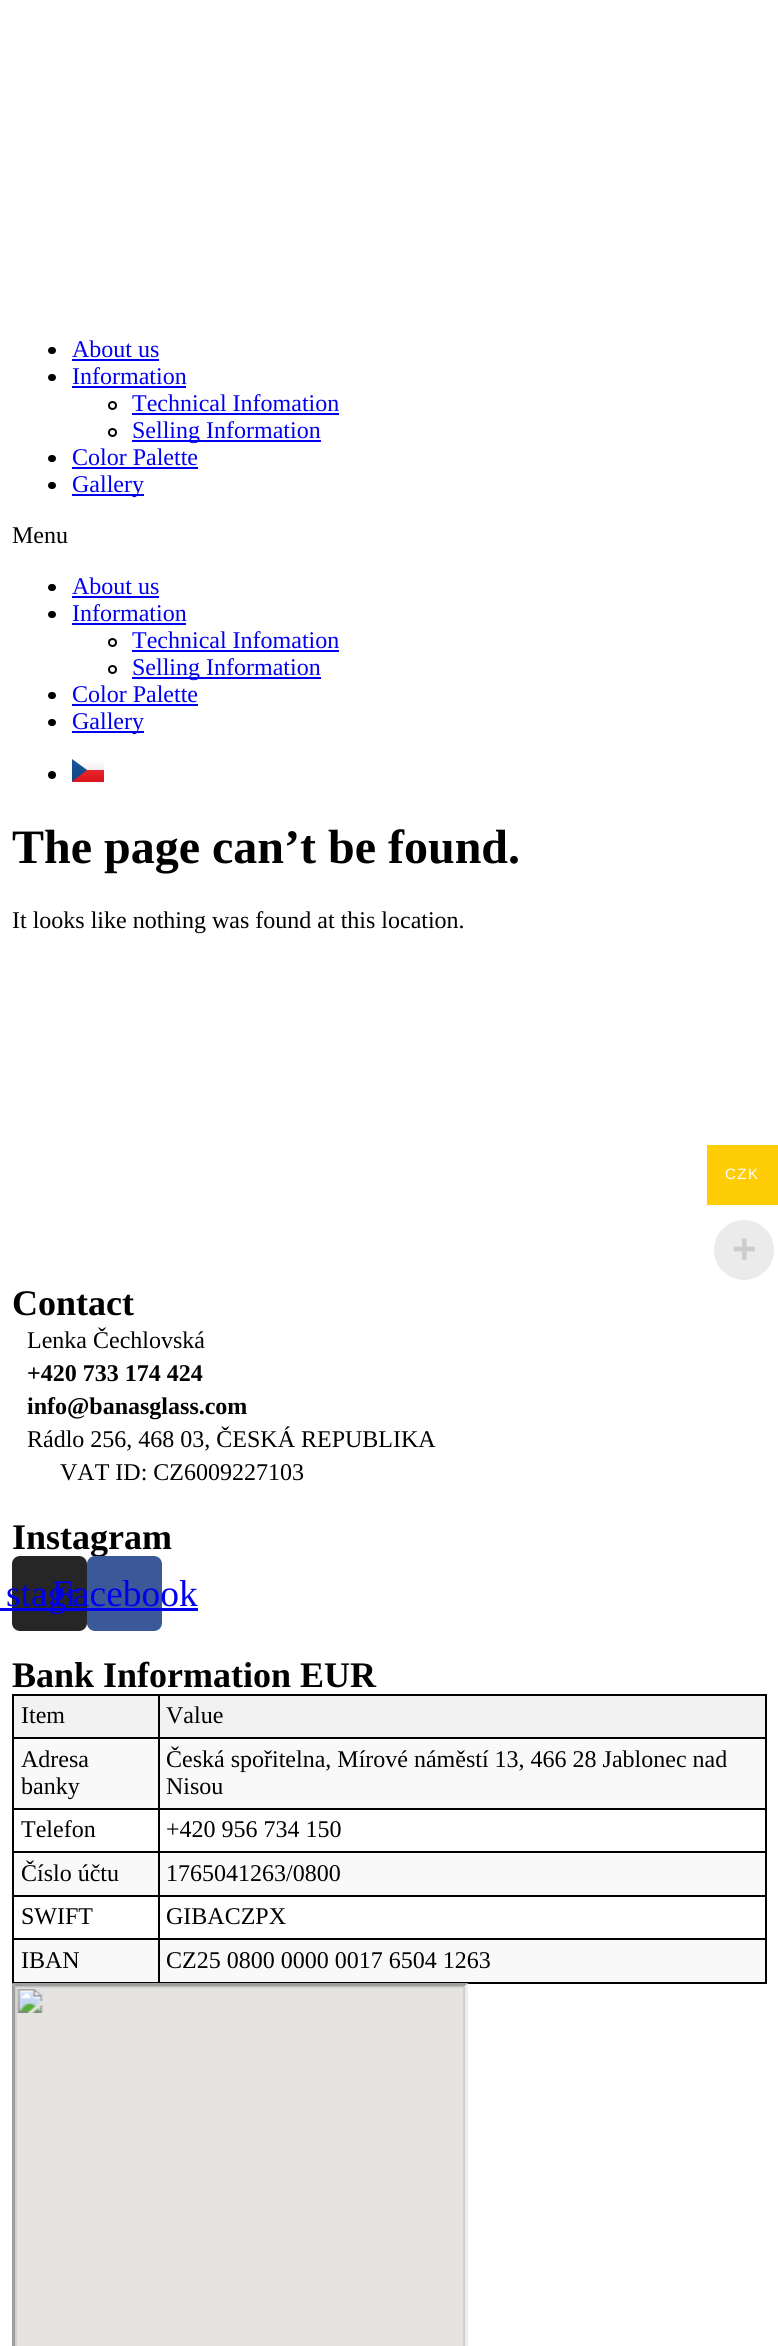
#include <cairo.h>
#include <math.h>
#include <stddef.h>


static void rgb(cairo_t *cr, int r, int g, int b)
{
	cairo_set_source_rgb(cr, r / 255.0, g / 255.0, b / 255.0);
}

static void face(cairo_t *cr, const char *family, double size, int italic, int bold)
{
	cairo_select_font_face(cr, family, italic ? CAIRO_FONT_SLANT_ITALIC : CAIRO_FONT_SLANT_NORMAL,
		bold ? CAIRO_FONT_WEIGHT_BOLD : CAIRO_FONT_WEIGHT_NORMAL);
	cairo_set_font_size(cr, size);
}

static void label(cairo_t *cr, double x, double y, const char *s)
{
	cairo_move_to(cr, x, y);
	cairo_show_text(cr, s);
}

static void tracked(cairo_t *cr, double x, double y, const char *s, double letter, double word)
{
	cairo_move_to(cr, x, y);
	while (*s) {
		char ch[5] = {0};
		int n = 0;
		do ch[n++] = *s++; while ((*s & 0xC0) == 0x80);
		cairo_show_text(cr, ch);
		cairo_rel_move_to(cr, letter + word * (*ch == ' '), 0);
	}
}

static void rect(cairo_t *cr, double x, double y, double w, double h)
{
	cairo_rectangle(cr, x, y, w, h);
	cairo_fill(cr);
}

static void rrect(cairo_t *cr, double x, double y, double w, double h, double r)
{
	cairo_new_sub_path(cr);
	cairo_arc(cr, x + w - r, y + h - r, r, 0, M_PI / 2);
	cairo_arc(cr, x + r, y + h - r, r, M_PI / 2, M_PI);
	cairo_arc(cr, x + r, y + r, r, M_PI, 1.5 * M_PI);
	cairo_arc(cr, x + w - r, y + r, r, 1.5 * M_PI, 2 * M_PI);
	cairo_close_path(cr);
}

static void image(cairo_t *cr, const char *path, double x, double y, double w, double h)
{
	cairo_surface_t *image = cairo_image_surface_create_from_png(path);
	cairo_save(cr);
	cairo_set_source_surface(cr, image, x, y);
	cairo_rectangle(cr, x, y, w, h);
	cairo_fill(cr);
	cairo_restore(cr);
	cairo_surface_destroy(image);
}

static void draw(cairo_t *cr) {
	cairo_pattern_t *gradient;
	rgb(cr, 255, 255, 255);
	cairo_paint(cr);
	rgb(cr, 0, 0, 0);
	rrect(cr, 48, 347, 8, 7, 3.5);
	cairo_fill(cr);
	face(cr, "Liberation Serif", 24, 0, 0);
	rgb(cr, 0, 0, 238);
	label(cr, 72, 357, "About us");
	rect(cr, 72, 359, 87, 2);
	rgb(cr, 0, 0, 0);
	rrect(cr, 48, 374, 8, 7, 3.5);
	cairo_fill(cr);
	rgb(cr, 0, 0, 238);
	label(cr, 72, 384, "Information");
	rect(cr, 72, 386, 114, 2);
	cairo_new_path(cr);
	cairo_arc(cr, 112.5, 405.5, 3.5, 0, 2 * M_PI);
	rgb(cr, 0, 0, 0);
	cairo_stroke(cr);
	rgb(cr, 0, 0, 238);
	label(cr, 132, 411, "Technical Infomation");
	rect(cr, 132, 413, 207, 2);
	cairo_new_path(cr);
	cairo_arc(cr, 112.5, 432.5, 3.5, 0, 2 * M_PI);
	rgb(cr, 0, 0, 0);
	cairo_stroke(cr);
	rgb(cr, 0, 0, 238);
	rect(cr, 132, 440, 189, 2);
	label(cr, 132, 438, "Selling Information");
	rgb(cr, 0, 0, 0);
	rrect(cr, 48, 455, 8, 7, 3.5);
	cairo_fill(cr);
	rgb(cr, 0, 0, 238);
	label(cr, 72, 465, "Color Palette");
	rect(cr, 72, 467, 126, 2);
	rgb(cr, 0, 0, 0);
	rrect(cr, 48, 482, 8, 7, 3.5);
	cairo_fill(cr);
	rgb(cr, 0, 0, 238);
	rect(cr, 72, 494, 72, 2);
	label(cr, 72, 492, "Gallery");
	rgb(cr, 0, 0, 0);
	label(cr, 12, 543, "Menu");
	rrect(cr, 48, 584, 8, 7, 3.5);
	cairo_fill(cr);
	rgb(cr, 0, 0, 238);
	label(cr, 72, 594, "About us");
	rect(cr, 72, 596, 87, 2);
	rgb(cr, 0, 0, 0);
	rrect(cr, 48, 611, 8, 7, 3.5);
	cairo_fill(cr);
	rgb(cr, 0, 0, 238);
	label(cr, 72, 621, "Information");
	rect(cr, 72, 623, 114, 2);
	cairo_new_path(cr);
	cairo_arc(cr, 112.5, 642.5, 3.5, 0, 2 * M_PI);
	rgb(cr, 0, 0, 0);
	cairo_stroke(cr);
	rgb(cr, 0, 0, 238);
	label(cr, 132, 648, "Technical Infomation");
	rect(cr, 132, 650, 207, 2);
	cairo_new_path(cr);
	cairo_arc(cr, 112.5, 669.5, 3.5, 0, 2 * M_PI);
	rgb(cr, 0, 0, 0);
	cairo_stroke(cr);
	rgb(cr, 0, 0, 238);
	rect(cr, 132, 677, 189, 2);
	label(cr, 132, 675, "Selling Information");
	rgb(cr, 0, 0, 0);
	rrect(cr, 48, 692, 8, 7, 3.5);
	cairo_fill(cr);
	rgb(cr, 0, 0, 238);
	label(cr, 72, 702, "Color Palette");
	rect(cr, 72, 704, 126, 2);
	rgb(cr, 0, 0, 0);
	rrect(cr, 48, 719, 8, 7, 3.5);
	cairo_fill(cr);
	rgb(cr, 0, 0, 238);
	rect(cr, 72, 731, 72, 2);
	label(cr, 72, 729, "Gallery");
	gradient = cairo_pattern_create_linear(88, 759, 88, 770);
	cairo_pattern_add_color_stop_rgba(gradient, 0, 1, 1, 1, 1);
	cairo_pattern_add_color_stop_rgba(gradient, 1, 0.941, 0.941, 0.941, 1);
	cairo_set_source(cr, gradient);
	cairo_pattern_destroy(gradient);
	rect(cr, 72, 761, 32, 9);
	gradient = cairo_pattern_create_linear(88, 770, 88, 782);
	cairo_pattern_add_color_stop_rgba(gradient, 0, 0.91, 0.145, 0.165, 1);
	cairo_pattern_add_color_stop_rgba(gradient, 1, 0.843, 0.082, 0.102, 1);
	cairo_set_source(cr, gradient);
	cairo_pattern_destroy(gradient);
	rect(cr, 72, 770, 32, 12);
	gradient = cairo_pattern_create_linear(80, 759, 80, 782);
	cairo_pattern_add_color_stop_rgba(gradient, 0, 0.09, 0.341, 0.62, 1);
	cairo_pattern_add_color_stop_rgba(gradient, 1, 0.063, 0.271, 0.498, 1);
	cairo_set_source(cr, gradient);
	cairo_pattern_destroy(gradient);
	cairo_set_fill_rule(cr, CAIRO_FILL_RULE_EVEN_ODD);
	cairo_new_path(cr);
	cairo_move_to(cr, 72, 759);
	cairo_line_to(cr, 87, 770);
	cairo_line_to(cr, 72, 781.5);
	cairo_close_path(cr);
	cairo_fill(cr);
	rgb(cr, 0, 0, 0);
	cairo_arc(cr, 52, 775, 4, 0, 2 * M_PI);
	cairo_fill(cr);
	face(cr, "Liberation Serif", 48, 0, 1);
	label(cr, 12, 863, "The page can’t be found.");
	face(cr, "Liberation Serif", 24, 0, 0);
	label(cr, 12, 928, "It looks like nothing was found at this location.");
	rgb(cr, 255, 205, 5);
	rect(cr, 707, 1145, 71, 60);
	face(cr, "Liberation Sans", 15, 0, 0);
	rgb(cr, 255, 255, 255);
	tracked(cr, 725, 1179, "CZK", 1.5, 0);
	rgb(cr, 235, 235, 235);
	cairo_new_path(cr);
	cairo_arc(cr, 744, 1250, 30, 0, 2 * M_PI);
	cairo_fill(cr);
	face(cr, "Liberation Sans", 42, 0, 1);
	rgb(cr, 204, 204, 204);
	label(cr, 732, 1263, "+");
	face(cr, "Liberation Serif", 36, 0, 1);
	rgb(cr, 0, 0, 0);
	label(cr, 12, 1315, "Contact");
	face(cr, "Liberation Serif", 24, 0, 0);
	label(cr, 27, 1348, "Lenka Čechlovská");
	face(cr, "Liberation Serif", 24, 0, 1);
	label(cr, 27, 1381, "+420 733 174 424");
	label(cr, 27, 1414, "info@banasglass.com");
	face(cr, "Liberation Serif", 24, 0, 0);
	label(cr, 27, 1447, "Rádlo 256, 468 03, ČESKÁ REPUBLIKA");
	label(cr, 60, 1480, "VAT ID: CZ6009227103");
	face(cr, "Liberation Serif", 36, 0, 1);
	label(cr, 12, 1549, "Instagram");
	rgb(cr, 38, 38, 38);
	rrect(cr, 12, 1556, 75, 75, 8);
	cairo_fill(cr);
	rgb(cr, 0, 0, 238);
	rect(cr, 0, 1608, 51, 3);
	face(cr, "Liberation Serif", 37.5, 0, 0);
	label(cr, 6, 1606, "stagr");
	rgb(cr, 59, 89, 152);
	rrect(cr, 87, 1556, 75, 75, 8);
	cairo_fill(cr);
	rgb(cr, 0, 0, 238);
	label(cr, 52, 1606, "Facebook");
	rect(cr, 51, 1608, 147, 3);
	face(cr, "Liberation Serif", 36, 0, 1);
	rgb(cr, 0, 0, 0);
	label(cr, 12, 1687, "Bank Information EUR");
	rect(cr, 12, 1694, 755, 2);
	rect(cr, 765, 1694, 2, 289);
	rect(cr, 12, 1982, 755, 2);
	rect(cr, 12, 1694, 2, 289);
	rgb(cr, 242, 242, 242);
	rect(cr, 14, 1696, 144, 41);
	face(cr, "Liberation Serif", 24, 0, 0);
	rgb(cr, 0, 0, 0);
	label(cr, 21, 1723, "Item");
	rgb(cr, 242, 242, 242);
	rect(cr, 160, 1696, 605, 41);
	rgb(cr, 0, 0, 0);
	rect(cr, 158, 1737, 609, 2);
	rgb(cr, 249, 249, 249);
	rect(cr, 14, 1739, 751, 69);
	rgb(cr, 0, 0, 0);
	rect(cr, 158, 1808, 609, 2);
	rect(cr, 158, 1851, 609, 2);
	rgb(cr, 249, 249, 249);
	rect(cr, 14, 1853, 751, 42);
	rgb(cr, 0, 0, 0);
	rect(cr, 158, 1895, 609, 2);
	rect(cr, 158, 1938, 609, 2);
	rgb(cr, 249, 249, 249);
	rect(cr, 14, 1940, 751, 42);
	rgb(cr, 0, 0, 0);
	rect(cr, 158, 1938, 2, 45);
	rect(cr, 12, 1938, 147, 2);
	rect(cr, 158, 1895, 2, 45);
	rect(cr, 12, 1895, 147, 2);
	rect(cr, 158, 1851, 2, 45);
	rect(cr, 12, 1851, 147, 2);
	rect(cr, 158, 1808, 2, 45);
	rect(cr, 12, 1808, 147, 2);
	rect(cr, 158, 1737, 2, 72);
	rect(cr, 12, 1737, 147, 2);
	rect(cr, 158, 1694, 2, 45);
	label(cr, 166, 1723, "Value");
	label(cr, 21, 1767, "Adresa");
	label(cr, 21, 1794, "banky");
	label(cr, 166, 1767, "Česká spořitelna, Mírové náměstí 13, 466 28 Jablonec nad");
	label(cr, 166, 1794, "Nisou");
	label(cr, 21, 1837, "Telefon");
	label(cr, 166, 1837, "+420 956 734 150");
	label(cr, 21, 1881, "Číslo účtu");
	label(cr, 166, 1881, "1765041263/0800");
	label(cr, 21, 1924, "SWIFT");
	label(cr, 166, 1924, "GIBACZPX");
	label(cr, 21, 1968, "IBAN");
	label(cr, 166, 1968, "CZ25 0800 0000 0017 6504 1263");
	rgb(cr, 159, 159, 159);
	cairo_set_fill_rule(cr, CAIRO_FILL_RULE_WINDING);
	cairo_new_path(cr);
	cairo_move_to(cr, 12, 1983);
	cairo_line_to(cr, 468, 1983);
	cairo_line_to(cr, 465, 1986);
	cairo_line_to(cr, 15, 1986);
	cairo_close_path(cr);
	cairo_fill(cr);
	cairo_new_path(cr);
	cairo_move_to(cr, 12, 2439);
	cairo_line_to(cr, 12, 1983);
	cairo_line_to(cr, 15, 1986);
	cairo_line_to(cr, 15, 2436);
	cairo_close_path(cr);
	cairo_fill(cr);
	image(cr, "image0.png", 15, 1986, 450, 360);
	rgb(cr, 238, 238, 238);
	cairo_new_path(cr);
	cairo_move_to(cr, 468, 1983);
	cairo_line_to(cr, 468, 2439);
	cairo_line_to(cr, 465, 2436);
	cairo_line_to(cr, 465, 1986);
	cairo_close_path(cr);
	cairo_fill(cr);
}

int main(void) {
	cairo_surface_t *surface = cairo_image_surface_create(CAIRO_FORMAT_RGB24, 778, 2346);
	cairo_t *cr = cairo_create(surface);
	cairo_font_options_t *options = cairo_font_options_create();
	cairo_font_options_set_hint_metrics(options, CAIRO_HINT_METRICS_OFF);
	cairo_font_options_set_hint_style(options, CAIRO_HINT_STYLE_NONE);
	cairo_set_font_options(cr, options);
	cairo_set_miter_limit(cr, 4);
	draw(cr);
	cairo_surface_write_to_png(surface, "render.png");
	cairo_font_options_destroy(options);
	cairo_destroy(cr);
	cairo_surface_destroy(surface);
	return 0;
}
